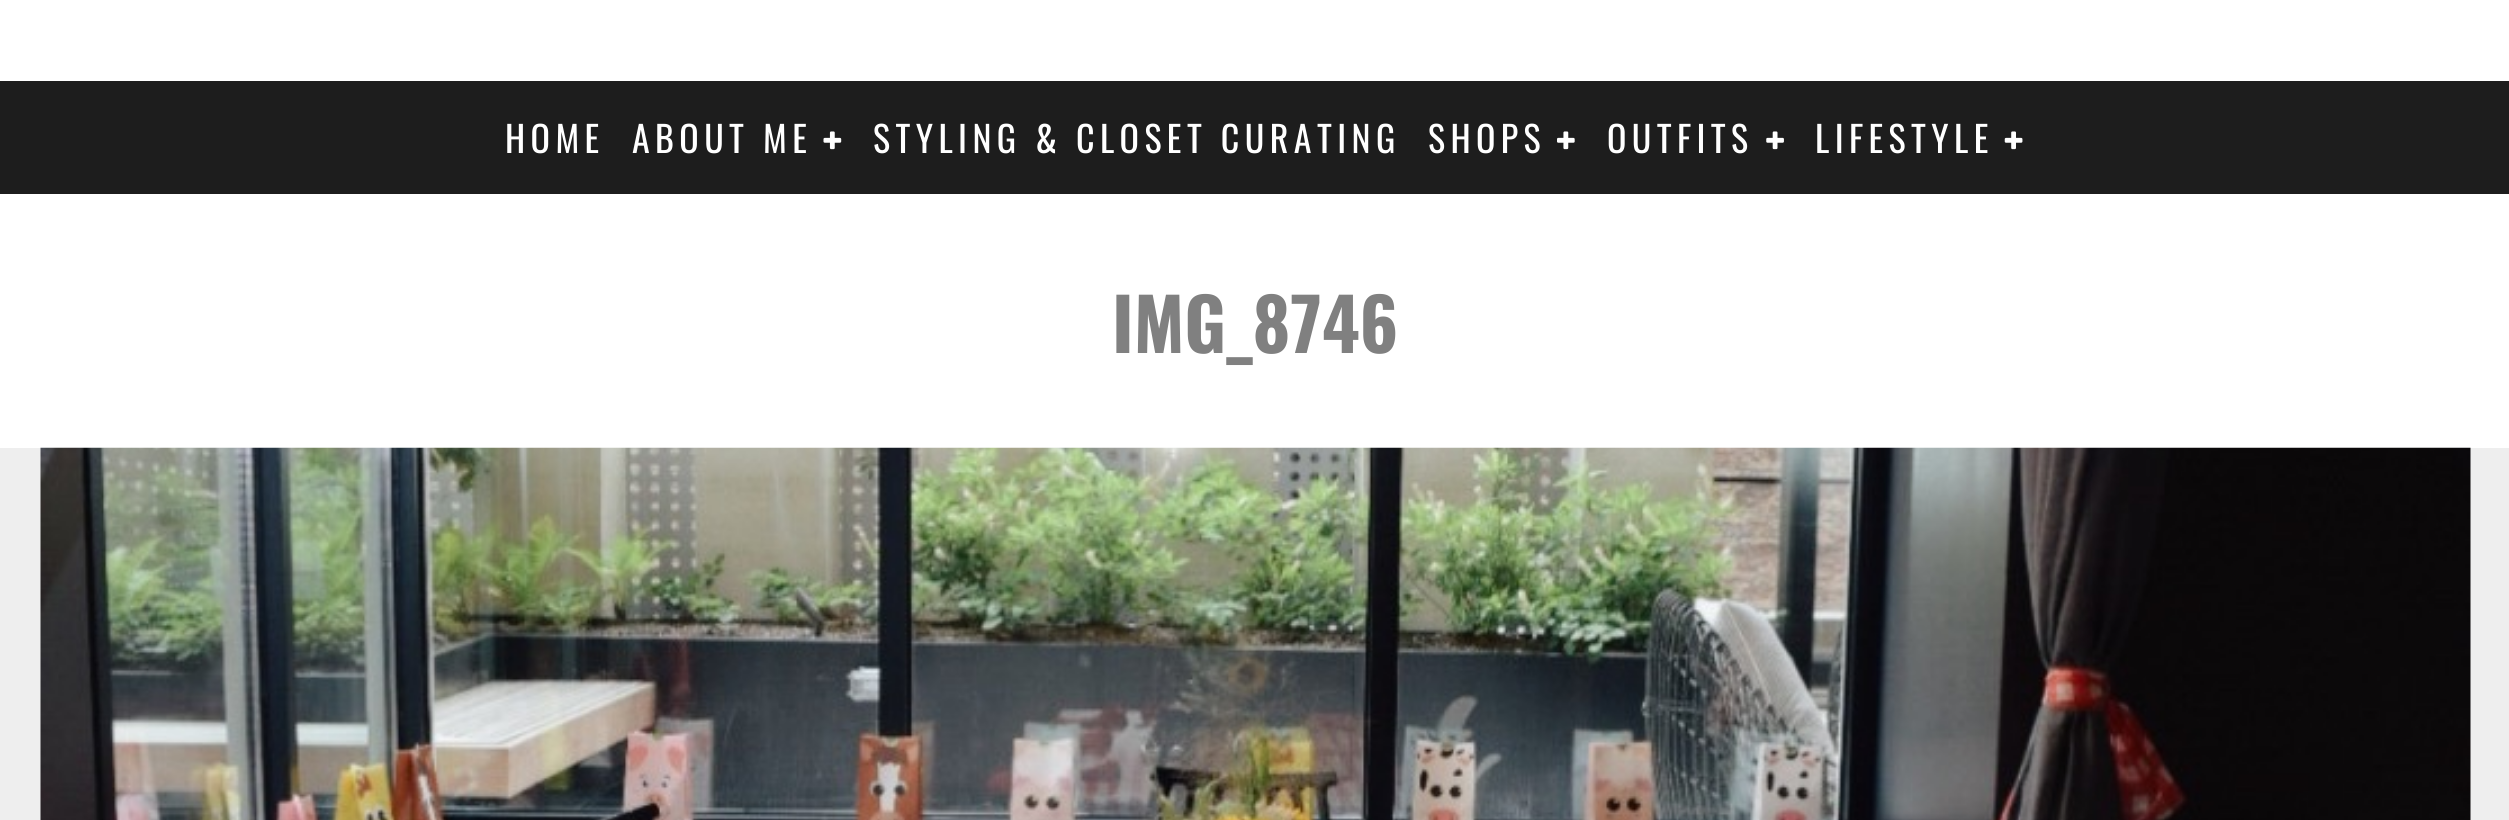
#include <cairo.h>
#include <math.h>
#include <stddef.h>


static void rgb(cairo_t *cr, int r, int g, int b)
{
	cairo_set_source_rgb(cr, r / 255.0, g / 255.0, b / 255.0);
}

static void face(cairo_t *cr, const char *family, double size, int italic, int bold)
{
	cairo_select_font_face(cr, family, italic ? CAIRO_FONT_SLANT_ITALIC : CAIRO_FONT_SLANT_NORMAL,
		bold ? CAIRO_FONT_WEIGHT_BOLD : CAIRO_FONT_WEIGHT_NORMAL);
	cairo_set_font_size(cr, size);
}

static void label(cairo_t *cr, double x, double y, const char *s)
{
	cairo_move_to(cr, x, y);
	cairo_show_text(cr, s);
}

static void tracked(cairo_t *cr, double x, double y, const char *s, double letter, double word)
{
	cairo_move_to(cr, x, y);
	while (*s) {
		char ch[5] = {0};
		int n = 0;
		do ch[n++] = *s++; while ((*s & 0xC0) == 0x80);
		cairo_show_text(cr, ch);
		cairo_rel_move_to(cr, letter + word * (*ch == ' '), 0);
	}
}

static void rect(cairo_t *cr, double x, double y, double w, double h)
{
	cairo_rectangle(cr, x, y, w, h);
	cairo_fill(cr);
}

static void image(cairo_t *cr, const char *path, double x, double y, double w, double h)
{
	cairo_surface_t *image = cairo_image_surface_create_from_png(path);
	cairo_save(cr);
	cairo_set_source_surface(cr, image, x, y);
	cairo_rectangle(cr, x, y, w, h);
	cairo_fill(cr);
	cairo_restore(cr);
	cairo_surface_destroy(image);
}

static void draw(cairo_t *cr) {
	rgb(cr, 255, 255, 255);
	cairo_paint(cr);
	rgb(cr, 29, 29, 29);
	rect(cr, 0, 81, 2509, 113);
	face(cr, "Oswald", 36, 0, 0);
	rgb(cr, 255, 255, 255);
	tracked(cr, 505, 153, "HOME", 5.4, 0);
	tracked(cr, 632, 153, "ABOUT ME", 5.4, 0);
	image(cr, "image0.png", 823, 131, 19, 19);
	tracked(cr, 873, 153, "STYLING & CLOSET CURATING", 5.4, 0);
	tracked(cr, 1428, 153, "SHOPS", 5.4, 0);
	image(cr, "image1.png", 1557, 131, 18, 19);
	tracked(cr, 1607, 153, "OUTFITS", 5.4, 0);
	image(cr, "image2.png", 1766, 131, 18, 19);
	tracked(cr, 1815, 153, "LIFESTYLE", 5.4, 0);
	image(cr, "image3.png", 2004, 131, 19, 19);
	face(cr, "Oswald", 72, 0, 1);
	rgb(cr, 128, 128, 128);
	label(cr, 1112, 353, "IMG_8746");
	rgb(cr, 238, 238, 238);
	rect(cr, 0, 448, 2509, 372);
	image(cr, "image4.png", 40, 447, 2431, 373);
}

int main(void) {
	cairo_surface_t *surface = cairo_image_surface_create(CAIRO_FORMAT_RGB24, 2509, 820);
	cairo_t *cr = cairo_create(surface);
	cairo_font_options_t *options = cairo_font_options_create();
	cairo_font_options_set_hint_metrics(options, CAIRO_HINT_METRICS_OFF);
	cairo_font_options_set_hint_style(options, CAIRO_HINT_STYLE_NONE);
	cairo_set_font_options(cr, options);
	cairo_set_miter_limit(cr, 4);
	draw(cr);
	cairo_surface_write_to_png(surface, "render.png");
	cairo_font_options_destroy(options);
	cairo_destroy(cr);
	cairo_surface_destroy(surface);
	return 0;
}
